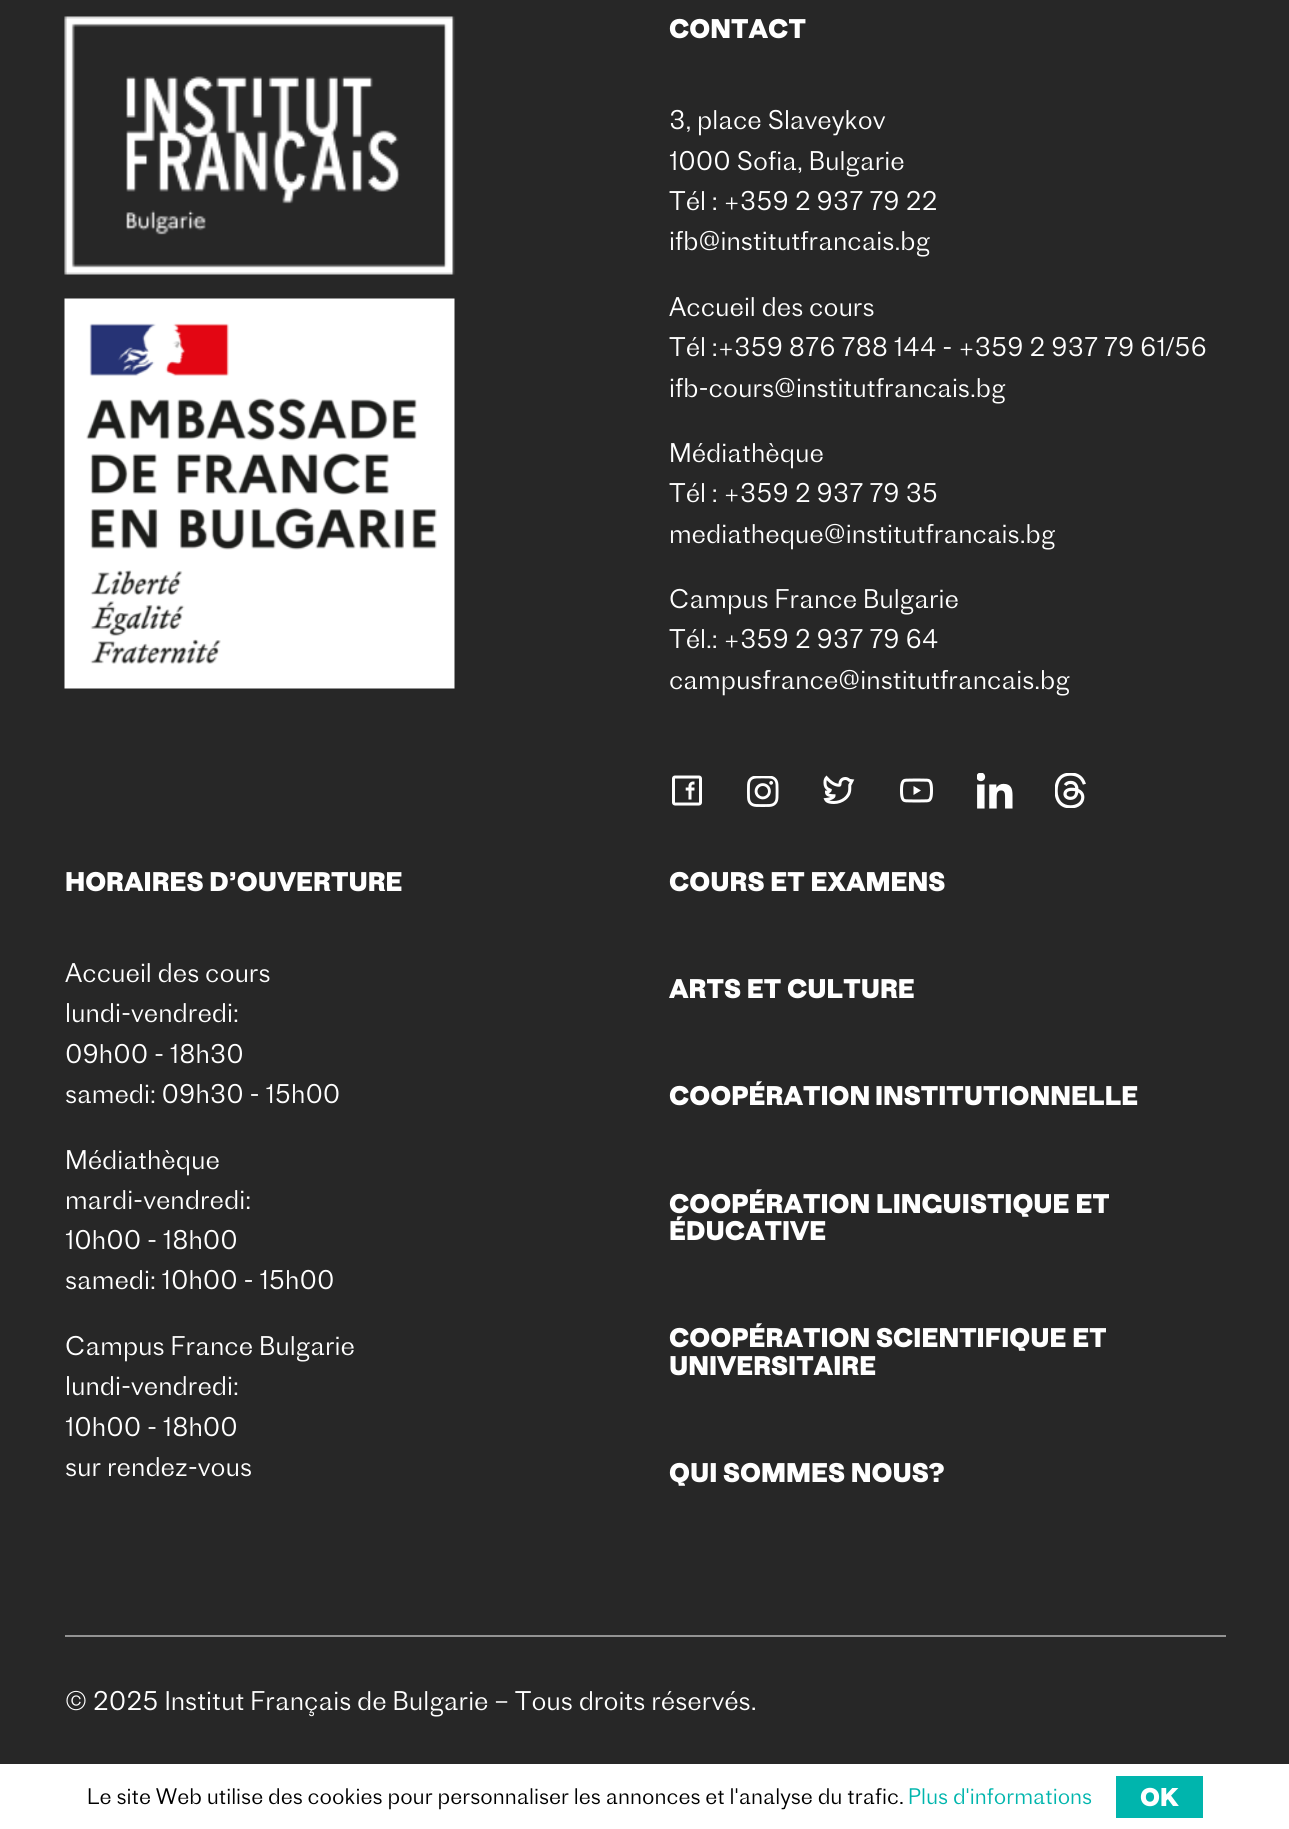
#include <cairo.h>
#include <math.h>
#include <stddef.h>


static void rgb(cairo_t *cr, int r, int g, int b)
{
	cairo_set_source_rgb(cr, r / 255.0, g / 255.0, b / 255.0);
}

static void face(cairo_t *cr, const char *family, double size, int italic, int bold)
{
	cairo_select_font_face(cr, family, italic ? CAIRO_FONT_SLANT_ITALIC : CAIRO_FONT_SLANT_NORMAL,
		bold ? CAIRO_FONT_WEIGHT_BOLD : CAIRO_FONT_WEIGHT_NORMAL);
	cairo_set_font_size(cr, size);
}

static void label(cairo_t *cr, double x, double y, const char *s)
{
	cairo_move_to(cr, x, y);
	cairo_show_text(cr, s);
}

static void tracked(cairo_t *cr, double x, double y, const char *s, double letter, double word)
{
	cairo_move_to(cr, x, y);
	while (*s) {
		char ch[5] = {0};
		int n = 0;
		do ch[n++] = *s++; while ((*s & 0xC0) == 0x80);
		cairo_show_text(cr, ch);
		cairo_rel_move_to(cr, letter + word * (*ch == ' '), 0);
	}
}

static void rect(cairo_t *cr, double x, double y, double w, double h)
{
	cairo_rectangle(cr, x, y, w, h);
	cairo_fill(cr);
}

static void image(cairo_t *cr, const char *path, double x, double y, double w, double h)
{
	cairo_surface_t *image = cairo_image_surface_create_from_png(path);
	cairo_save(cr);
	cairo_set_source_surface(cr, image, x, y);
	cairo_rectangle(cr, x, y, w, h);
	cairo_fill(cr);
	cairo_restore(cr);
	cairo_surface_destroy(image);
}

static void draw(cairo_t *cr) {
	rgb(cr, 39, 39, 39);
	cairo_paint(cr);
	rgb(cr, 147, 147, 147);
	rect(cr, 65, 1635, 1161, 2);
	image(cr, "image0.png", 64, 16, 391, 259);
	image(cr, "image1.png", 64, 298, 391, 391);
	face(cr, "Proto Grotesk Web", 25.2, 0, 1);
	rgb(cr, 255, 255, 255);
	label(cr, 669, 38, "CONTACT");
	face(cr, "Proto Grotesk Web Light", 25.2, 0, 0);
	label(cr, 669, 129, "3, place Slaveykov");
	label(cr, 669, 170, "1000 Sofia, Bulgarie");
	label(cr, 669, 210, "Tél : +359 2 937 79 22");
	label(cr, 669, 250, "ifb@institutfrancais.bg");
	label(cr, 669, 316, "Accueil des cours");
	label(cr, 669, 356, "Tél :+359 876 788 144 - +359 2 937 79 61/56");
	label(cr, 669, 397, "ifb-cours@institutfrancais.bg");
	label(cr, 669, 462, "Médiathèque");
	label(cr, 669, 502, "Tél : +359 2 937 79 35");
	label(cr, 669, 543, "mediatheque@institutfrancais.bg");
	label(cr, 669, 608, "Campus France Bulgarie");
	label(cr, 669, 648, "Tél.: +359 2 937 79 64");
	label(cr, 669, 689, "campusfrance@institutfrancais.bg");
	image(cr, "image2.png", 672, 775, 30, 31);
	image(cr, "image3.png", 747, 776, 32, 31);
	image(cr, "image4.png", 823, 775, 32, 29);
	image(cr, "image5.png", 900, 778, 33, 25);
	image(cr, "image6.png", 977, 773, 36, 36);
	image(cr, "image7.png", 1055, 773, 31, 35);
	face(cr, "Proto Grotesk Web", 25.2, 0, 1);
	label(cr, 65, 891, "HORAIRES D’OUVERTURE");
	face(cr, "Proto Grotesk Web Light", 25.2, 0, 0);
	label(cr, 65, 982, "Accueil des cours");
	label(cr, 65, 1022, "lundi-vendredi:");
	label(cr, 65, 1063, "09h00 - 18h30");
	label(cr, 65, 1103, "samedi: 09h30 - 15h00");
	label(cr, 65, 1169, "Médiathèque");
	label(cr, 65, 1209, "mardi-vendredi:");
	label(cr, 65, 1249, "10h00 - 18h00");
	label(cr, 65, 1289, "samedi: 10h00 - 15h00");
	label(cr, 65, 1355, "Campus France Bulgarie");
	label(cr, 65, 1395, "lundi-vendredi:");
	label(cr, 65, 1436, "10h00 - 18h00");
	label(cr, 65, 1476, "sur rendez-vous");
	face(cr, "Proto Grotesk Web", 25.2, 0, 1);
	label(cr, 669, 891, "COURS ET EXAMENS");
	label(cr, 669, 998, "ARTS ET CULTURE");
	tracked(cr, 669, 1105, "COOPÉRATION INSTITUTIONNELLE", 0, -1);
	label(cr, 669, 1213, "COOPÉRATION LINGUISTIQUE ET");
	label(cr, 669, 1240, "ÉDUCATIVE");
	label(cr, 669, 1347, "COOPÉRATION SCIENTIFIQUE ET");
	label(cr, 669, 1375, "UNIVERSITAIRE");
	label(cr, 669, 1482, "QUI SOMMES NOUS?");
	face(cr, "Proto Grotesk Web Light", 25.2, 0, 0);
	label(cr, 65, 1710, "© 2025 Institut Français de Bulgarie – Tous droits réservés.");
	rect(cr, 0, 1764, 1289, 65);
	face(cr, "Proto Grotesk Web Light", 21, 0, 0);
	rgb(cr, 0, 0, 0);
	label(cr, 87, 1804, "Le site Web utilise des cookies pour personnaliser les annonces et l'analyse du trafic.");
	rgb(cr, 0, 181, 173);
	label(cr, 908, 1804, "Plus d'informations");
	rect(cr, 1116, 1776, 87, 42);
	face(cr, "Proto Grotesk Web", 24, 0, 1);
	rgb(cr, 255, 255, 255);
	label(cr, 1140, 1806, "OK");
}

int main(void) {
	cairo_surface_t *surface = cairo_image_surface_create(CAIRO_FORMAT_RGB24, 1289, 1829);
	cairo_t *cr = cairo_create(surface);
	cairo_font_options_t *options = cairo_font_options_create();
	cairo_font_options_set_hint_metrics(options, CAIRO_HINT_METRICS_OFF);
	cairo_font_options_set_hint_style(options, CAIRO_HINT_STYLE_NONE);
	cairo_set_font_options(cr, options);
	cairo_set_miter_limit(cr, 4);
	draw(cr);
	cairo_surface_write_to_png(surface, "render.png");
	cairo_font_options_destroy(options);
	cairo_destroy(cr);
	cairo_surface_destroy(surface);
	return 0;
}
